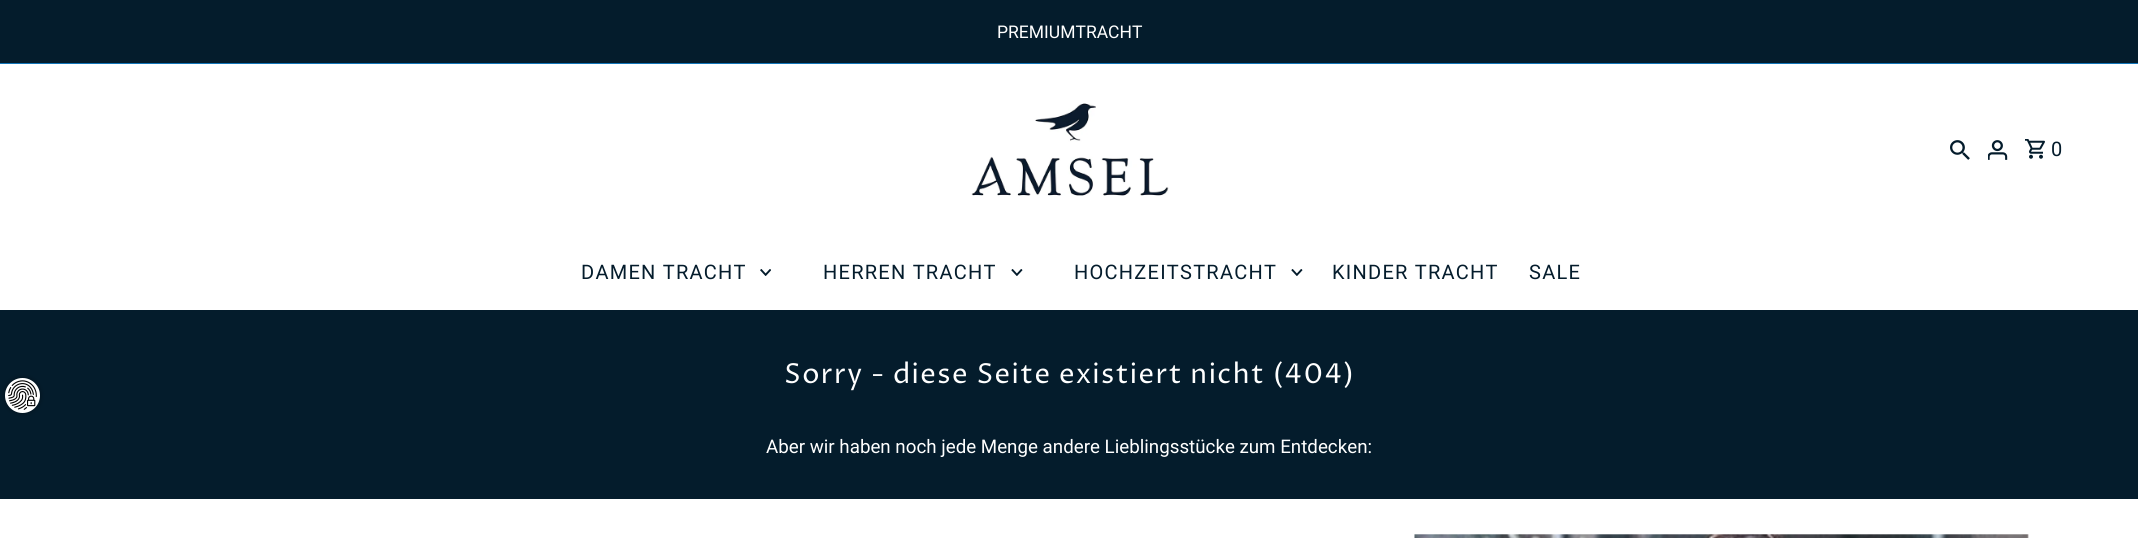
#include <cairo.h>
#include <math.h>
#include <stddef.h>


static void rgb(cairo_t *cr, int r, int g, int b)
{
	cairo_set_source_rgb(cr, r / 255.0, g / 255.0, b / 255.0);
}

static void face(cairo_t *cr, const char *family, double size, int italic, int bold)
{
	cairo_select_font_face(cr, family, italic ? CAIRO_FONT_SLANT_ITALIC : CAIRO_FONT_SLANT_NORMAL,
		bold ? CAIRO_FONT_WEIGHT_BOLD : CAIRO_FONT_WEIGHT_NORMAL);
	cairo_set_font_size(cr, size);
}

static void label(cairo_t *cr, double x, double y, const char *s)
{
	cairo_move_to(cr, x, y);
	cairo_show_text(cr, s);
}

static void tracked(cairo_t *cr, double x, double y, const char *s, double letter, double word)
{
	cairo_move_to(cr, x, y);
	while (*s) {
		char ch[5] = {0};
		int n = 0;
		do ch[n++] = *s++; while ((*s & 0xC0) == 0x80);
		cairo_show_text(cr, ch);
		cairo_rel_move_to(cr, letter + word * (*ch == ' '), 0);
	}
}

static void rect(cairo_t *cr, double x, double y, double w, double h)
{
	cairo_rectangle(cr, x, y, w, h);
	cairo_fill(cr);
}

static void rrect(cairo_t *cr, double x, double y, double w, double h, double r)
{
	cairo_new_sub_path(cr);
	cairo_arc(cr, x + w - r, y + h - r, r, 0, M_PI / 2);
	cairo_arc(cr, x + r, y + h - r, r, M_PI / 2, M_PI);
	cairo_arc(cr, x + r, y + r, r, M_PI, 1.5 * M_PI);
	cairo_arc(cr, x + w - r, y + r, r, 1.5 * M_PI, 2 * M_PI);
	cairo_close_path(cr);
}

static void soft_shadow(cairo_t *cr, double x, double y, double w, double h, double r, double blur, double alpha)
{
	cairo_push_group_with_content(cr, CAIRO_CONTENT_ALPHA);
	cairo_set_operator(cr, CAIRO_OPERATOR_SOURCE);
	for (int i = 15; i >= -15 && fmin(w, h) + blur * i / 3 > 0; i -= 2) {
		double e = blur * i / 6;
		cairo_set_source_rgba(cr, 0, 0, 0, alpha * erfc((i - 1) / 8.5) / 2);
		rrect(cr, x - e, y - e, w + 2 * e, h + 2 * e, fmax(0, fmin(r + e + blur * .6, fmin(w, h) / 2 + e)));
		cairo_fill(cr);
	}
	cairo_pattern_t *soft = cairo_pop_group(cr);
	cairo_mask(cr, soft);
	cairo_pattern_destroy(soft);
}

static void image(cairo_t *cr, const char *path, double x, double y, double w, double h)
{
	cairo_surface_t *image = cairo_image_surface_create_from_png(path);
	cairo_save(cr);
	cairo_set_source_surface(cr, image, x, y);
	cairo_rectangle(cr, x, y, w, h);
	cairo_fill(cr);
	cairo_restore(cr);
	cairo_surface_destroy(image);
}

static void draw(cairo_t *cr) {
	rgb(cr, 255, 255, 255);
	cairo_paint(cr);
	rgb(cr, 4, 28, 44);
	rect(cr, 0, 310, 2138, 189);
	rgb(cr, 0, 0, 0);
	soft_shadow(cr, 5, 378, 35, 35, 17.5, 2.5, 0.4);
	rgb(cr, 255, 255, 255);
	cairo_arc(cr, 22.5, 395.5, 17.5, 0, 2 * M_PI);
	cairo_fill(cr);
	image(cr, "image0.png", 8, 380, 29, 30);
	rgb(cr, 17, 117, 184);
	rect(cr, 0, 63, 2138, 1);
	rgb(cr, 4, 28, 44);
	rect(cr, 0, 0, 2138, 63);
	face(cr, "Roboto", 17.5, 0, 0);
	rgb(cr, 255, 255, 255);
	label(cr, 997, 38, "PREMIUMTRACHT");
	image(cr, "image1.png", 971, 103, 198, 93);
	image(cr, "image2.png", 1950, 140, 20, 20);
	image(cr, "image3.png", 1988, 140, 20, 20);
	image(cr, "image4.png", 2025, 139, 20, 20);
	face(cr, "Roboto", 20, 0, 0);
	rgb(cr, 4, 28, 44);
	tracked(cr, 2051, 156, "0", 1.25, 0);
	tracked(cr, 581, 279, "DAMEN TRACHT", 1.25, 0);
	image(cr, "image5.png", 760, 269, 11, 7);
	tracked(cr, 823, 279, "HERREN TRACHT", 1.25, 0);
	image(cr, "image6.png", 1011, 269, 12, 7);
	tracked(cr, 1074, 279, "HOCHZEITSTRACHT", 1.25, 0);
	image(cr, "image6.png", 1291, 269, 12, 7);
	tracked(cr, 1332, 279, "KINDER TRACHT", 1.25, 0);
	tracked(cr, 1529, 279, "SALE", 1.25, 0);
	face(cr, "Proza Libre", 27.5, 0, 0);
	rgb(cr, 255, 255, 255);
	tracked(cr, 784, 383, "Sorry - diese Seite existiert nicht (404)", 1.4, 0);
	face(cr, "Roboto", 18.75, 0, 0);
	label(cr, 766, 453, "Aber wir haben noch jede Menge andere Lieblingsstücke zum Entdecken:");
	image(cr, "image7.png", 1414, 534, 615, 4);
}

int main(void) {
	cairo_surface_t *surface = cairo_image_surface_create(CAIRO_FORMAT_RGB24, 2138, 538);
	cairo_t *cr = cairo_create(surface);
	cairo_font_options_t *options = cairo_font_options_create();
	cairo_font_options_set_hint_metrics(options, CAIRO_HINT_METRICS_OFF);
	cairo_font_options_set_hint_style(options, CAIRO_HINT_STYLE_NONE);
	cairo_set_font_options(cr, options);
	cairo_set_miter_limit(cr, 4);
	draw(cr);
	cairo_surface_write_to_png(surface, "render.png");
	cairo_font_options_destroy(options);
	cairo_destroy(cr);
	cairo_surface_destroy(surface);
	return 0;
}
